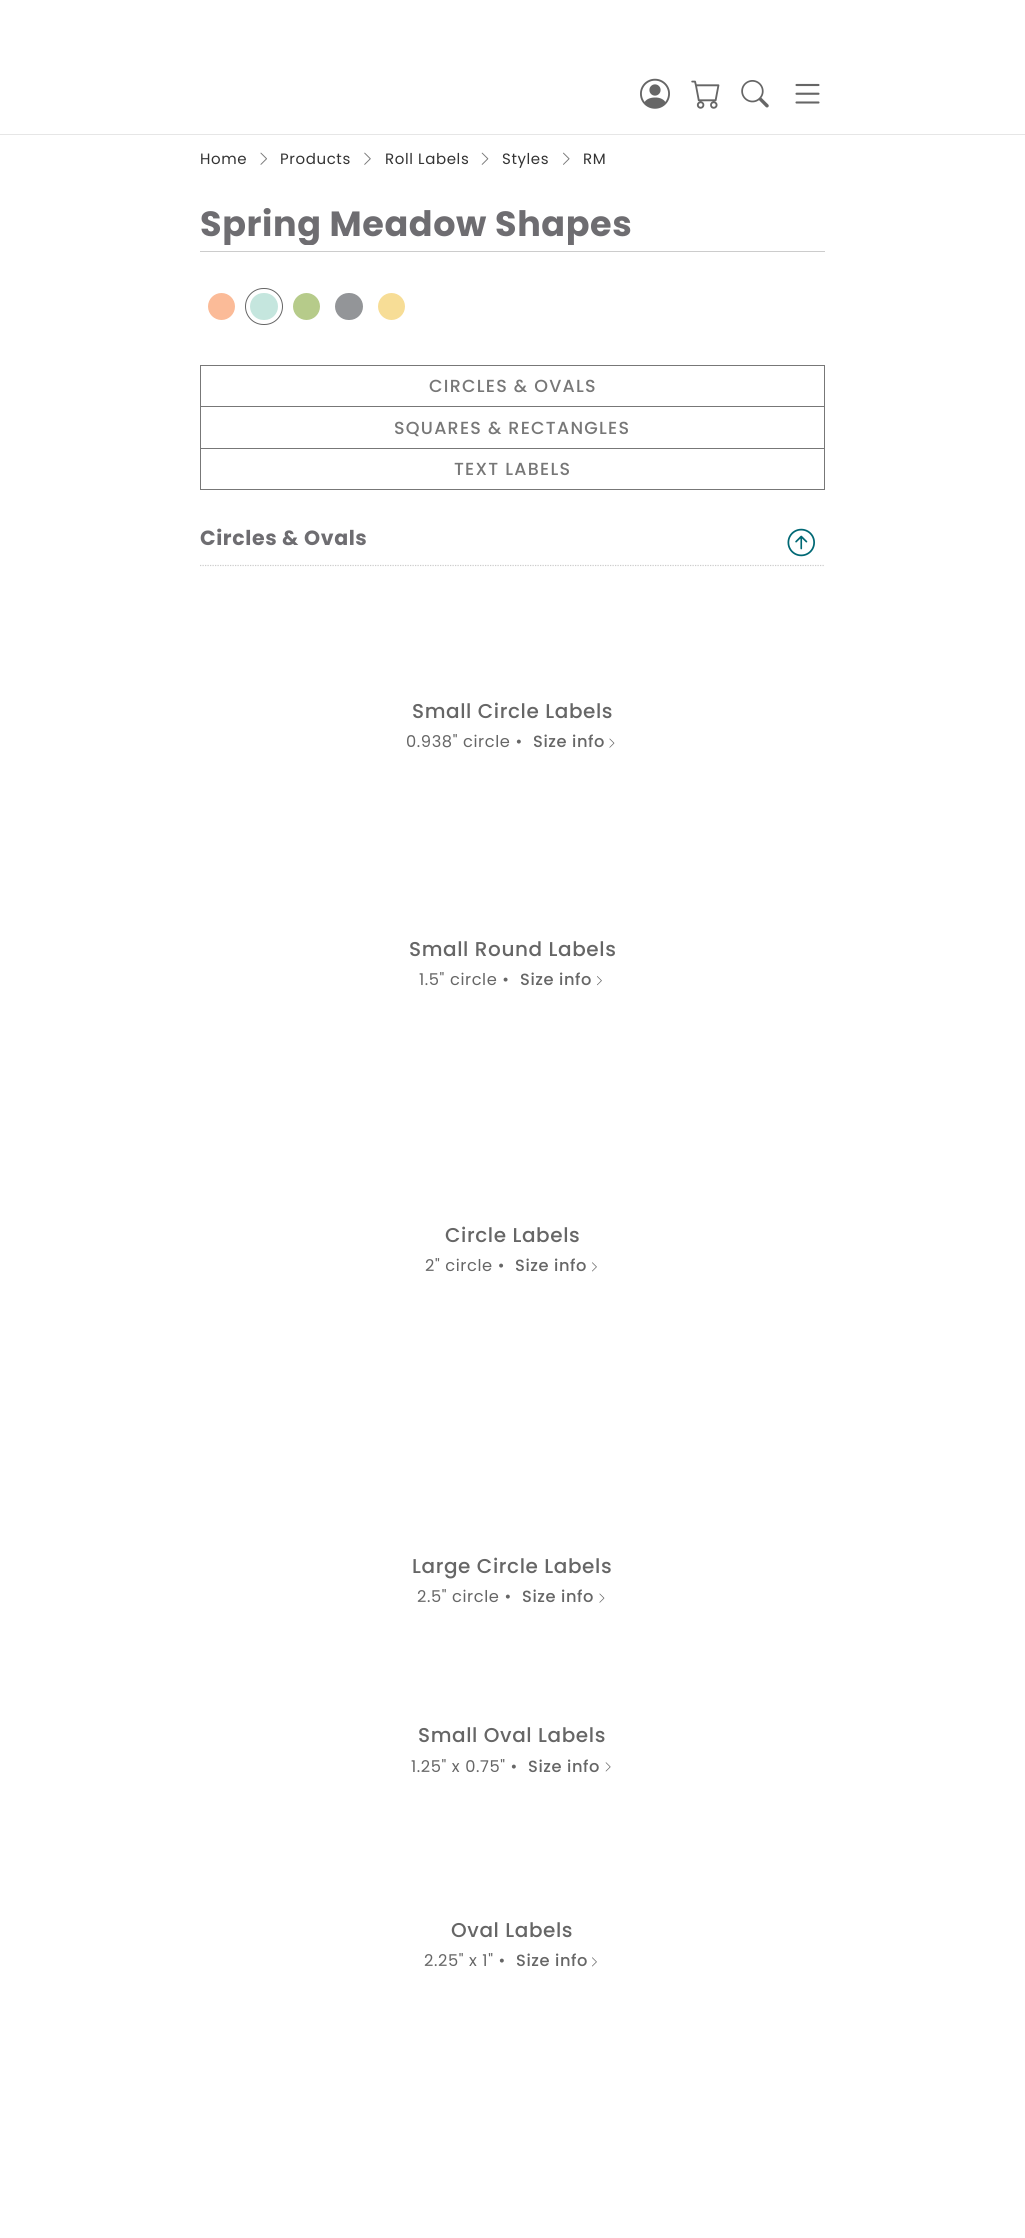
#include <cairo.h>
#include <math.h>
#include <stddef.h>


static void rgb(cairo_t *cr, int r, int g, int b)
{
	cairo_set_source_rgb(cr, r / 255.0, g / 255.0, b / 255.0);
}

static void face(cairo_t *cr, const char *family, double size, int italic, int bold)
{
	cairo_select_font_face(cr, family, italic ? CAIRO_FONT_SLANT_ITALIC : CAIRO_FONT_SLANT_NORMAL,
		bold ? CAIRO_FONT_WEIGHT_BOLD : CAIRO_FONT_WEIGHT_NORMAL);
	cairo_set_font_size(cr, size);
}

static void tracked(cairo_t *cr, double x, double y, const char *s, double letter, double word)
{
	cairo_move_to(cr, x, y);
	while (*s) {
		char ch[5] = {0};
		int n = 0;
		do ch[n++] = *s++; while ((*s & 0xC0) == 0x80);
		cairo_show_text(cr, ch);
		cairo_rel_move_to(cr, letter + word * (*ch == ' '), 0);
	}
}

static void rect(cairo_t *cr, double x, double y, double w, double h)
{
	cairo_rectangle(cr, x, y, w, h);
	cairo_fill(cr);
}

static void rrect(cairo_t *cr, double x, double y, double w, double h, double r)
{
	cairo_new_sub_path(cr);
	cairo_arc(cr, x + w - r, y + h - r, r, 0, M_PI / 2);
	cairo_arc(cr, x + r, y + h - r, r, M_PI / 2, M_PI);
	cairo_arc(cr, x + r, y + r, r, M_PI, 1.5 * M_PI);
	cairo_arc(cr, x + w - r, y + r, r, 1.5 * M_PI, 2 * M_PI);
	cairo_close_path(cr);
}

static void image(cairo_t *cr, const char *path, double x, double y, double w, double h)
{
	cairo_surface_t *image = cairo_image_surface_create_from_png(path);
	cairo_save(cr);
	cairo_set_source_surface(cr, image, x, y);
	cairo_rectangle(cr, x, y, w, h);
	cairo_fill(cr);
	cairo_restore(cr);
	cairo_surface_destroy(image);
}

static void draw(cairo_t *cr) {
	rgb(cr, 255, 255, 255);
	cairo_paint(cr);
	rgb(cr, 230, 230, 230);
	rect(cr, 0, 134, 1025, 1);
	image(cr, "image0.png", 640, 78, 30, 31);
	image(cr, "image1.png", 691, 80, 29, 29);
	image(cr, "image2.png", 741, 80, 28, 28);
	image(cr, "image3.png", 795, 83, 25, 21);
	face(cr, "Poppins", 15, 0, 0);
	rgb(cr, 51, 51, 51);
	tracked(cr, 200, 164, "Home", 0.6, 0);
	image(cr, "image4.png", 260, 152, 7, 13);
	tracked(cr, 280, 164, "Products", 0.6, 0);
	image(cr, "image5.png", 364, 152, 7, 13);
	tracked(cr, 385, 164, "Roll Labels", 0.6, 0);
	image(cr, "image6.png", 481, 152, 8, 13);
	tracked(cr, 502, 164, "Styles", 0.6, 0);
	image(cr, "image7.png", 563, 152, 7, 13);
	tracked(cr, 583, 164, "RM", 0.6, 0);
	rgb(cr, 204, 204, 204);
	rect(cr, 200, 251, 625, 1);
	cairo_save(cr);
	cairo_rectangle(cr, 200, 205, 433, 40);
	cairo_clip(cr);
	face(cr, "Poppins", 35, 0, 1);
	rgb(cr, 110, 109, 113);
	tracked(cr, 200, 236, "Spring Meadow Shapes", 0.6, 0);
	cairo_restore(cr);
	rgb(cr, 251, 187, 152);
	cairo_new_path(cr);
	cairo_arc(cr, 221.5, 306.5, 11, 0, 2 * M_PI);
	cairo_fill_preserve(cr);
	cairo_set_line_width(cr, 5);
	cairo_stroke(cr);
	rrect(cr, 245.5, 288.5, 37, 36, 18);
	rgb(cr, 102, 102, 102);
	cairo_set_line_width(cr, 1);
	cairo_stroke(cr);
	rgb(cr, 197, 230, 222);
	rrect(cr, 252.5, 295.5, 23, 22, 11);
	cairo_fill_preserve(cr);
	cairo_set_line_width(cr, 5);
	cairo_stroke(cr);
	rgb(cr, 182, 203, 138);
	cairo_arc(cr, 306.5, 306.5, 11, 0, 2 * M_PI);
	cairo_fill_preserve(cr);
	cairo_stroke(cr);
	rgb(cr, 147, 149, 152);
	rrect(cr, 337.5, 295.5, 23, 22, 11);
	cairo_fill_preserve(cr);
	cairo_stroke(cr);
	rgb(cr, 247, 221, 150);
	cairo_arc(cr, 391.5, 306.5, 11, 0, 2 * M_PI);
	cairo_fill_preserve(cr);
	cairo_stroke(cr);
	cairo_rectangle(cr, 200.5, 365.5, 624, 124);
	rgb(cr, 119, 119, 119);
	cairo_set_line_width(cr, 1);
	cairo_stroke(cr);
	rect(cr, 201, 406, 623, 1);
	face(cr, "Poppins Medium", 17.5, 0, 0);
	tracked(cr, 429, 392, "CIRCLES & OVALS", 1.25, 0);
	rect(cr, 201, 448, 623, 1);
	tracked(cr, 394, 434, "SQUARES & RECTANGLES", 1.25, 0);
	tracked(cr, 454, 475, "TEXT LABELS", 1.25, 0);
	cairo_new_path(cr);
	cairo_move_to(cr, 200, 565.5);
	cairo_line_to(cr, 825, 565.5);
	rgb(cr, 204, 204, 204);
	cairo_set_line_width(cr, 1.2);
	cairo_set_dash(cr, (double[]){1.25, 1.25}, 2, 0);
	cairo_stroke(cr);
	face(cr, "Poppins", 20.5, 0, 1);
	rgb(cr, 110, 109, 113);
	tracked(cr, 200, 545, "Circles & Ovals", 0.6, 0);
	image(cr, "image8.png", 787, 528, 28, 29);
	face(cr, "Poppins Medium", 20, 0, 0);
	rgb(cr, 102, 102, 102);
	tracked(cr, 412, 718, "Small Circle Labels", 0.6, 0);
	face(cr, "Poppins", 16.25, 0, 0);
	tracked(cr, 406, 747, "0.938\" circle •", 0.6, 0);
	face(cr, "Poppins Medium", 16.25, 0, 0);
	tracked(cr, 533, 747, "Size info", 0.6, 0);
	image(cr, "image9.png", 609, 738, 6, 10);
	face(cr, "Poppins Medium", 20, 0, 0);
	tracked(cr, 409, 956, "Small Round Labels", 0.6, 0);
	face(cr, "Poppins", 16.25, 0, 0);
	tracked(cr, 419, 985, "1.5\" circle •", 0.6, 0);
	face(cr, "Poppins Medium", 16.25, 0, 0);
	tracked(cr, 520, 985, "Size info", 0.6, 0);
	image(cr, "image10.png", 597, 976, 5, 10);
	face(cr, "Poppins Medium", 20, 0, 0);
	tracked(cr, 445, 1242, "Circle Labels", 0.6, 0);
	face(cr, "Poppins", 16.25, 0, 0);
	tracked(cr, 425, 1271, "2\" circle •", 0.6, 0);
	face(cr, "Poppins Medium", 16.25, 0, 0);
	tracked(cr, 515, 1271, "Size info", 0.6, 0);
	image(cr, "image11.png", 592, 1262, 5, 10);
	face(cr, "Poppins Medium", 20, 0, 0);
	tracked(cr, 412, 1573, "Large Circle Labels", 0.6, 0);
	face(cr, "Poppins", 16.25, 0, 0);
	tracked(cr, 417, 1602, "2.5\" circle •", 0.6, 0);
	face(cr, "Poppins Medium", 16.25, 0, 0);
	tracked(cr, 522, 1602, "Size info", 0.6, 0);
	image(cr, "image9.png", 599, 1593, 6, 10);
	face(cr, "Poppins Medium", 20, 0, 0);
	tracked(cr, 418, 1742, "Small Oval Labels", 0.6, 0);
	face(cr, "Poppins", 16.25, 0, 0);
	tracked(cr, 411, 1772, "1.25\" x 0.75\" •", 0.6, 0);
	face(cr, "Poppins Medium", 16.25, 0, 0);
	tracked(cr, 528, 1772, "Size info", 0.6, 0);
	image(cr, "image12.png", 605, 1762, 6, 10);
	face(cr, "Poppins Medium", 20, 0, 0);
	tracked(cr, 451, 1937, "Oval Labels", 0.6, 0);
	face(cr, "Poppins", 16.25, 0, 0);
	tracked(cr, 424, 1966, "2.25\" x 1\" •", 0.6, 0);
	face(cr, "Poppins Medium", 16.25, 0, 0);
	tracked(cr, 516, 1966, "Size info", 0.6, 0);
	image(cr, "image11.png", 592, 1957, 5, 10);
}

int main(void) {
	cairo_surface_t *surface = cairo_image_surface_create(CAIRO_FORMAT_RGB24, 1025, 2238);
	cairo_t *cr = cairo_create(surface);
	cairo_font_options_t *options = cairo_font_options_create();
	cairo_font_options_set_hint_metrics(options, CAIRO_HINT_METRICS_OFF);
	cairo_font_options_set_hint_style(options, CAIRO_HINT_STYLE_NONE);
	cairo_set_font_options(cr, options);
	cairo_set_miter_limit(cr, 4);
	draw(cr);
	cairo_surface_write_to_png(surface, "render.png");
	cairo_font_options_destroy(options);
	cairo_destroy(cr);
	cairo_surface_destroy(surface);
	return 0;
}
